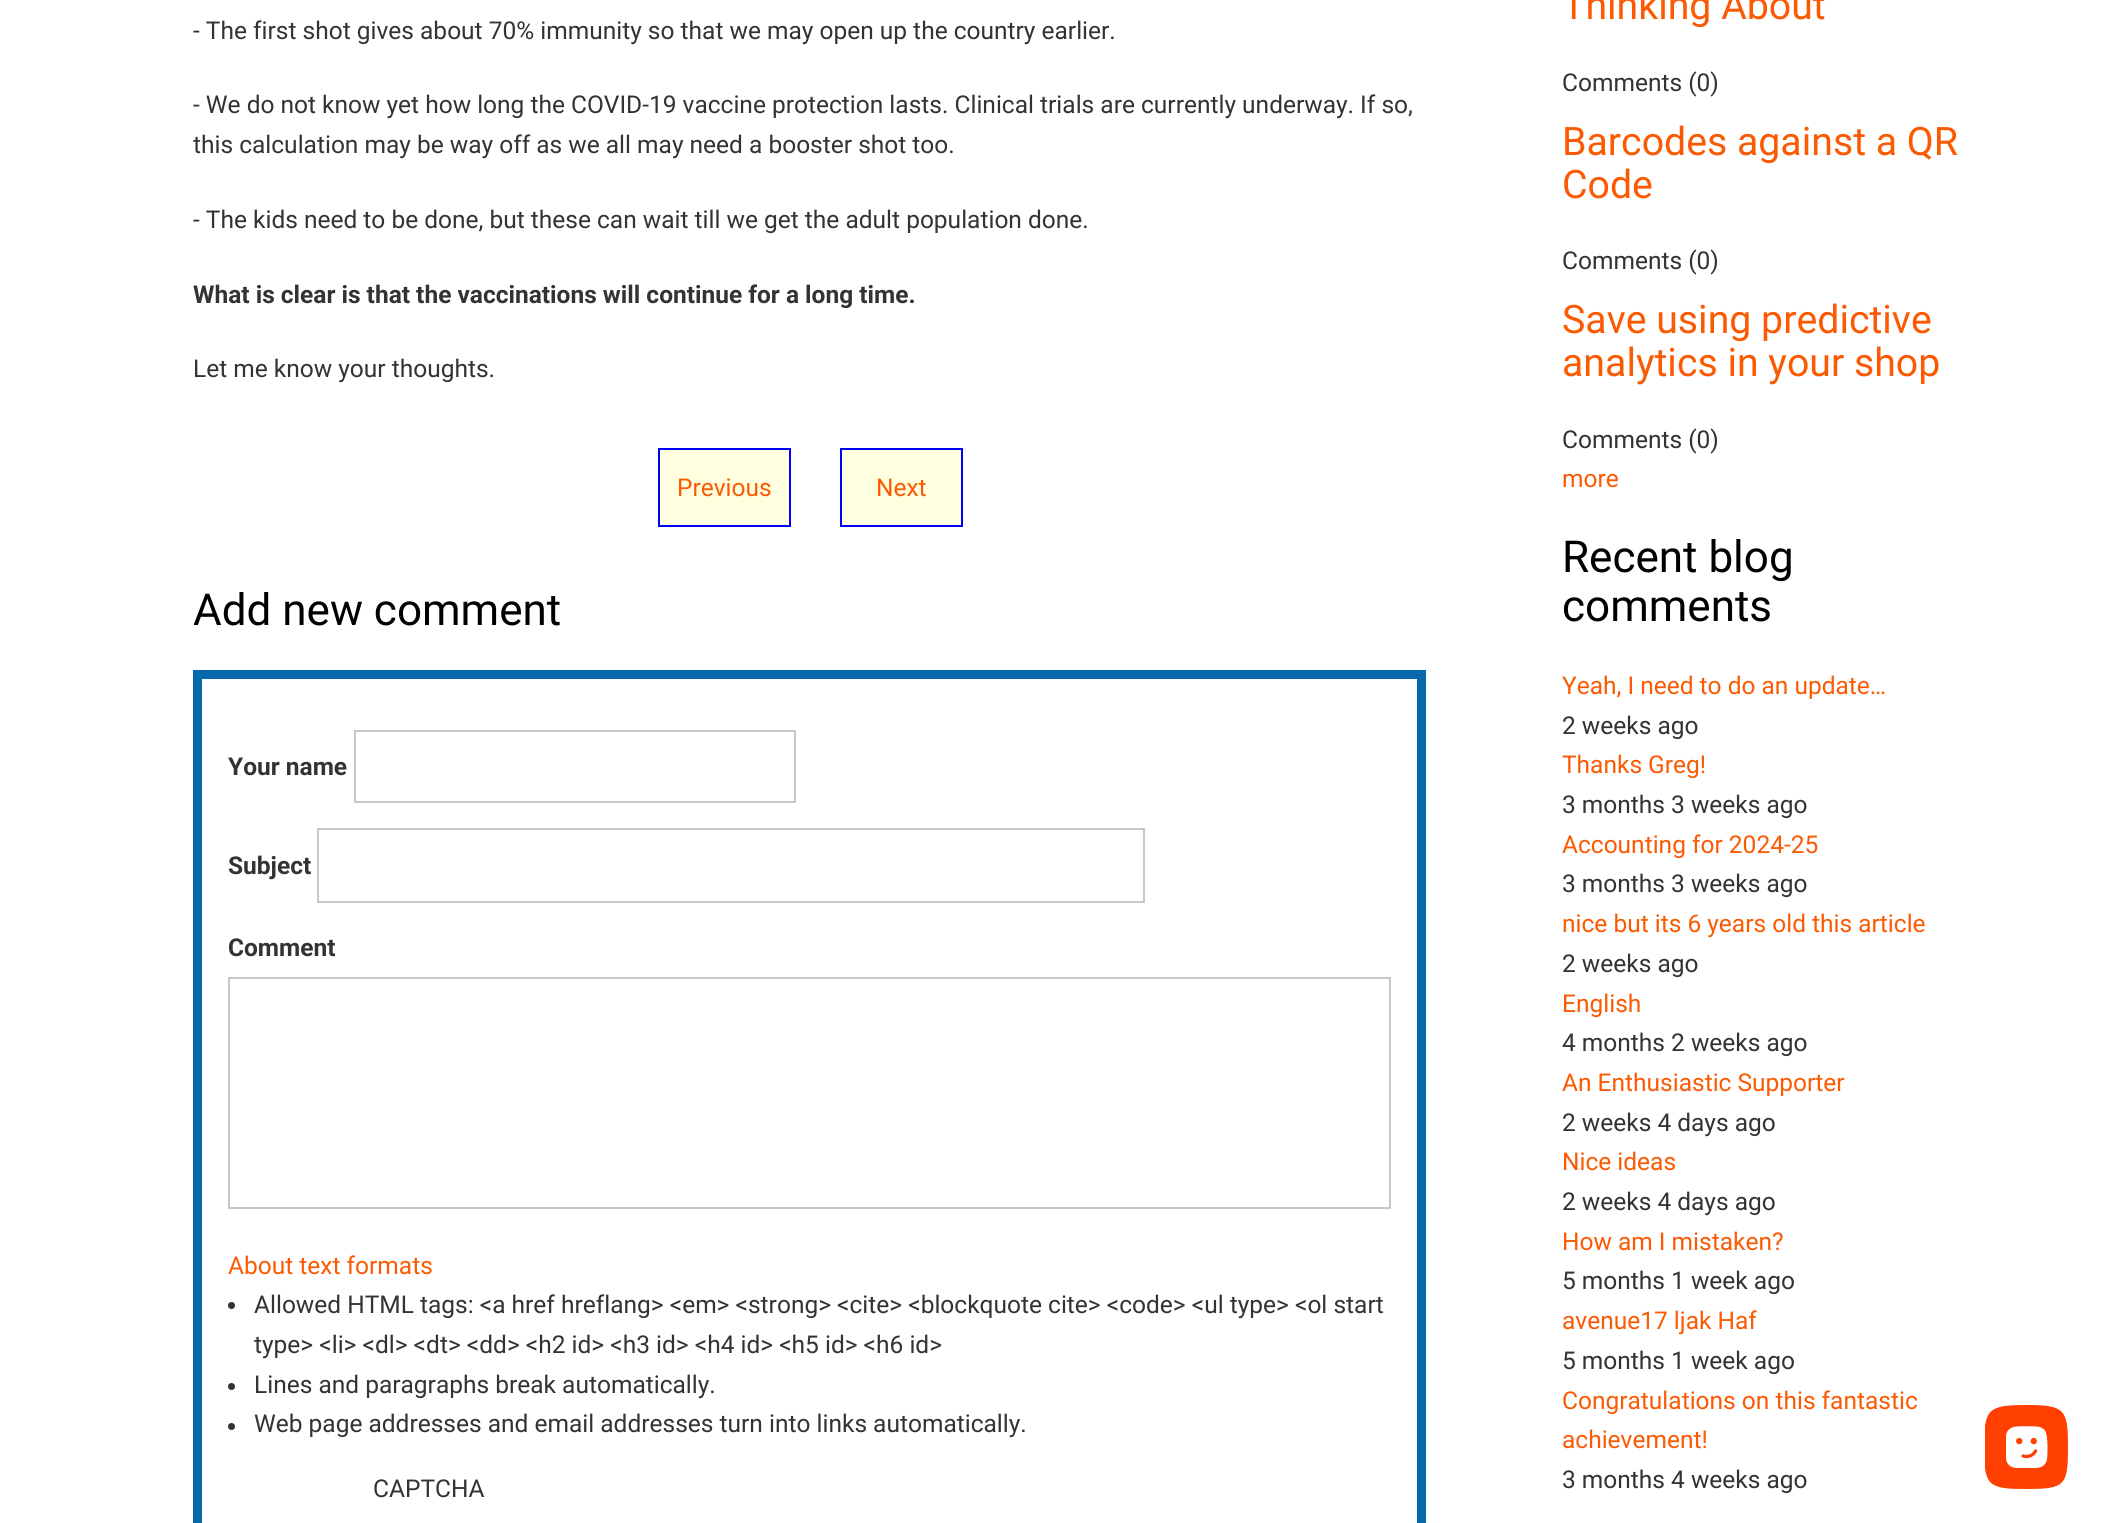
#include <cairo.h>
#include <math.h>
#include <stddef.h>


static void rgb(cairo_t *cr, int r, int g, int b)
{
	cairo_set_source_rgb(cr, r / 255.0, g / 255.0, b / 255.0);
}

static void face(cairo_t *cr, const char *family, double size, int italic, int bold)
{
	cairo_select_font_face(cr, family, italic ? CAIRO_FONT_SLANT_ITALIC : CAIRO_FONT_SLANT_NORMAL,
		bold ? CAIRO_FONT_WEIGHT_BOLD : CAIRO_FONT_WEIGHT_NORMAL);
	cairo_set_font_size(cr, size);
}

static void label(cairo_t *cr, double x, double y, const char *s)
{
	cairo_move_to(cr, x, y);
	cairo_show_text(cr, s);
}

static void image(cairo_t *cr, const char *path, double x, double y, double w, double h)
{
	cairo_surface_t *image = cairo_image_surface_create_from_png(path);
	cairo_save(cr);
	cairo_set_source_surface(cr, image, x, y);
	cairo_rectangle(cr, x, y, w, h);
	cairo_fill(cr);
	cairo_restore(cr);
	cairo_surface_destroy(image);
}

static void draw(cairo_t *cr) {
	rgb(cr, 255, 255, 255);
	cairo_paint(cr);
	face(cr, "Roboto", 24.5, 0, 0);
	rgb(cr, 51, 51, 51);
	label(cr, 193, 39, "- The first shot gives about 70% immunity so that we may open up the country earlier.");
	label(cr, 193, 113, "- We do not know yet how long the COVID-19 vaccine protection lasts. Clinical trials are currently underway. If so,");
	label(cr, 193, 153, "this calculation may be way off as we all may need a booster shot too.");
	label(cr, 193, 228, "- The kids need to be done, but these can wait till we get the adult population done.");
	face(cr, "Roboto", 24.5, 0, 1);
	label(cr, 193, 303, "What is clear is that the vaccinations will continue for a long time.");
	face(cr, "Roboto", 24.5, 0, 0);
	label(cr, 193, 377, "Let me know your thoughts.");
	rgb(cr, 255, 255, 224);
	cairo_rectangle(cr, 659, 449, 131, 77);
	cairo_fill_preserve(cr);
	rgb(cr, 0, 0, 255);
	cairo_stroke(cr);
	rgb(cr, 251, 90, 2);
	label(cr, 677, 496, "Previous");
	rgb(cr, 255, 255, 224);
	cairo_rectangle(cr, 841, 449, 121, 77);
	cairo_fill_preserve(cr);
	rgb(cr, 0, 0, 255);
	cairo_stroke(cr);
	rgb(cr, 251, 90, 2);
	label(cr, 876, 496, "Next");
	face(cr, "Roboto", 44, 0, 0);
	rgb(cr, 0, 0, 0);
	label(cr, 193, 625, "Add new comment");
	cairo_rectangle(cr, 197.5, 674.5, 1224, 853);
	rgb(cr, 7, 105, 173);
	cairo_set_line_width(cr, 9);
	cairo_stroke(cr);
	face(cr, "Roboto", 24.5, 0, 1);
	rgb(cr, 51, 51, 51);
	label(cr, 228, 775, "Your name");
	cairo_rectangle(cr, 355, 731, 440, 71);
	rgb(cr, 199, 199, 199);
	cairo_set_line_width(cr, 2);
	cairo_stroke(cr);
	rgb(cr, 51, 51, 51);
	label(cr, 228, 874, "Subject");
	cairo_rectangle(cr, 318, 829, 826, 73);
	rgb(cr, 199, 199, 199);
	cairo_stroke(cr);
	rgb(cr, 51, 51, 51);
	label(cr, 228, 956, "Comment");
	cairo_rectangle(cr, 229, 978, 1161, 230);
	rgb(cr, 199, 199, 199);
	cairo_stroke(cr);
	face(cr, "Roboto", 24.5, 0, 0);
	rgb(cr, 251, 90, 2);
	label(cr, 228, 1274, "About text formats");
	rgb(cr, 51, 51, 51);
	cairo_new_path(cr);
	cairo_arc(cr, 231.5, 1305.5, 3.5, 0, 2 * M_PI);
	cairo_fill(cr);
	label(cr, 254, 1313, "Allowed HTML tags: <a href hreflang> <em> <strong> <cite> <blockquote cite> <code> <ul type> <ol start");
	label(cr, 254, 1353, "type> <li> <dl> <dt> <dd> <h2 id> <h3 id> <h4 id> <h5 id> <h6 id>");
	cairo_new_path(cr);
	cairo_arc(cr, 231.5, 1386.5, 3.5, 0, 2 * M_PI);
	cairo_fill(cr);
	label(cr, 254, 1393, "Lines and paragraphs break automatically.");
	cairo_new_path(cr);
	cairo_arc(cr, 231.5, 1426.5, 3.5, 0, 2 * M_PI);
	cairo_fill(cr);
	label(cr, 254, 1432, "Web page addresses and email addresses turn into links automatically.");
	label(cr, 373, 1497, "CAPTCHA");
	face(cr, "Roboto", 39.25, 0, 0);
	rgb(cr, 251, 90, 2);
	label(cr, 1562, 19, "Thinking About");
	face(cr, "Roboto", 24.5, 0, 0);
	rgb(cr, 51, 51, 51);
	label(cr, 1562, 91, "Comments (0)");
	face(cr, "Roboto", 39.25, 0, 0);
	rgb(cr, 251, 90, 2);
	label(cr, 1562, 155, "Barcodes against a QR");
	label(cr, 1562, 198, "Code");
	face(cr, "Roboto", 24.5, 0, 0);
	rgb(cr, 51, 51, 51);
	label(cr, 1562, 269, "Comments (0)");
	face(cr, "Roboto", 39.25, 0, 0);
	rgb(cr, 251, 90, 2);
	label(cr, 1562, 333, "Save using predictive");
	label(cr, 1562, 376, "analytics in your shop");
	face(cr, "Roboto", 24.5, 0, 0);
	rgb(cr, 51, 51, 51);
	label(cr, 1562, 448, "Comments (0)");
	rgb(cr, 251, 90, 2);
	label(cr, 1562, 487, "more");
	face(cr, "Roboto", 44, 0, 0);
	rgb(cr, 0, 0, 0);
	label(cr, 1562, 572, "Recent blog");
	label(cr, 1562, 621, "comments");
	face(cr, "Roboto", 24.5, 0, 0);
	rgb(cr, 251, 90, 2);
	label(cr, 1562, 694, "Yeah, I need to do an update…");
	rgb(cr, 51, 51, 51);
	label(cr, 1562, 734, "2 weeks ago");
	rgb(cr, 251, 90, 2);
	label(cr, 1562, 773, "Thanks Greg!");
	rgb(cr, 51, 51, 51);
	label(cr, 1562, 813, "3 months 3 weeks ago");
	rgb(cr, 251, 90, 2);
	label(cr, 1562, 853, "Accounting for 2024-25");
	rgb(cr, 51, 51, 51);
	label(cr, 1562, 892, "3 months 3 weeks ago");
	rgb(cr, 251, 90, 2);
	label(cr, 1562, 932, "nice but its 6 years old this article");
	rgb(cr, 51, 51, 51);
	label(cr, 1562, 972, "2 weeks ago");
	rgb(cr, 251, 90, 2);
	label(cr, 1562, 1012, "English");
	rgb(cr, 51, 51, 51);
	label(cr, 1562, 1051, "4 months 2 weeks ago");
	rgb(cr, 251, 90, 2);
	label(cr, 1562, 1091, "An Enthusiastic Supporter");
	rgb(cr, 51, 51, 51);
	label(cr, 1562, 1131, "2 weeks 4 days ago");
	rgb(cr, 251, 90, 2);
	label(cr, 1562, 1170, "Nice ideas");
	rgb(cr, 51, 51, 51);
	label(cr, 1562, 1210, "2 weeks 4 days ago");
	rgb(cr, 251, 90, 2);
	label(cr, 1562, 1250, "How am I mistaken?");
	rgb(cr, 51, 51, 51);
	label(cr, 1562, 1289, "5 months 1 week ago");
	rgb(cr, 251, 90, 2);
	label(cr, 1562, 1329, "avenue17 ljak Haf");
	rgb(cr, 51, 51, 51);
	label(cr, 1562, 1369, "5 months 1 week ago");
	rgb(cr, 251, 90, 2);
	label(cr, 1562, 1409, "Congratulations on this fantastic");
	label(cr, 1562, 1448, "achievement!");
	rgb(cr, 51, 51, 51);
	label(cr, 1562, 1488, "3 months 4 weeks ago");
	cairo_save(cr);
	cairo_rectangle(cr, 1985, 1405, 84, 84);
	cairo_clip(cr);
	rgb(cr, 255, 64, 0);
	cairo_new_path(cr);
	cairo_move_to(cr, 1984, 1447);
	cairo_curve_to(cr, 1984, 1409, 1988, 1405, 2026, 1405);
	cairo_curve_to(cr, 2065, 1405, 2068, 1409, 2068, 1447);
	cairo_curve_to(cr, 2068, 1486, 2065, 1489, 2026, 1489);
	cairo_curve_to(cr, 1988, 1489, 1984, 1486, 1984, 1447);
	cairo_close_path(cr);
	cairo_fill(cr);
	cairo_restore(cr);
	image(cr, "image0.png", 2006, 1426, 42, 42);
}

int main(void) {
	cairo_surface_t *surface = cairo_image_surface_create(CAIRO_FORMAT_RGB24, 2102, 1523);
	cairo_t *cr = cairo_create(surface);
	cairo_font_options_t *options = cairo_font_options_create();
	cairo_font_options_set_hint_metrics(options, CAIRO_HINT_METRICS_OFF);
	cairo_font_options_set_hint_style(options, CAIRO_HINT_STYLE_NONE);
	cairo_set_font_options(cr, options);
	cairo_set_miter_limit(cr, 4);
	draw(cr);
	cairo_surface_write_to_png(surface, "render.png");
	cairo_font_options_destroy(options);
	cairo_destroy(cr);
	cairo_surface_destroy(surface);
	return 0;
}
